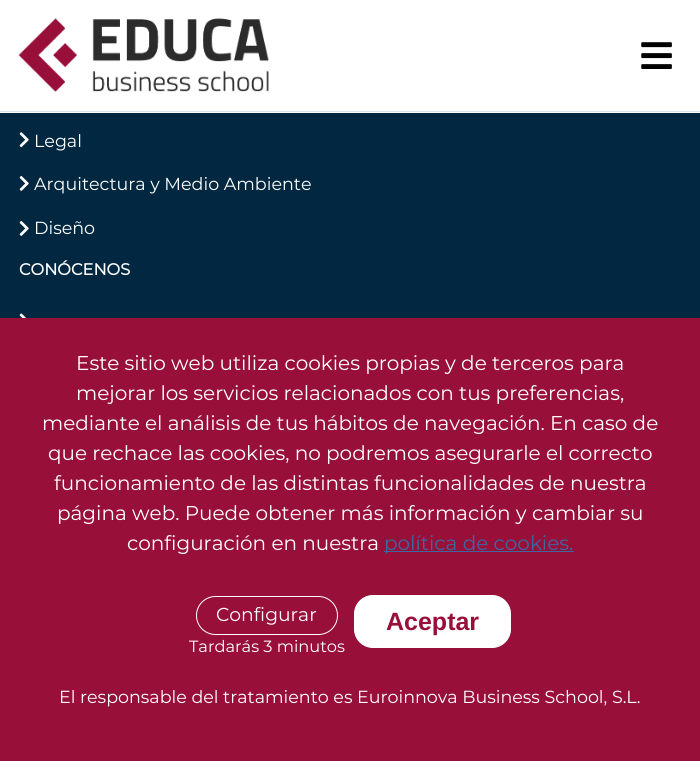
#include <cairo.h>
#include <math.h>
#include <stddef.h>


static void rgb(cairo_t *cr, int r, int g, int b)
{
	cairo_set_source_rgb(cr, r / 255.0, g / 255.0, b / 255.0);
}

static void face(cairo_t *cr, const char *family, double size, int italic, int bold)
{
	cairo_select_font_face(cr, family, italic ? CAIRO_FONT_SLANT_ITALIC : CAIRO_FONT_SLANT_NORMAL,
		bold ? CAIRO_FONT_WEIGHT_BOLD : CAIRO_FONT_WEIGHT_NORMAL);
	cairo_set_font_size(cr, size);
}

static void label(cairo_t *cr, double x, double y, const char *s)
{
	cairo_move_to(cr, x, y);
	cairo_show_text(cr, s);
}

static void rect(cairo_t *cr, double x, double y, double w, double h)
{
	cairo_rectangle(cr, x, y, w, h);
	cairo_fill(cr);
}

static void rrect(cairo_t *cr, double x, double y, double w, double h, double r)
{
	cairo_new_sub_path(cr);
	cairo_arc(cr, x + w - r, y + h - r, r, 0, M_PI / 2);
	cairo_arc(cr, x + r, y + h - r, r, M_PI / 2, M_PI);
	cairo_arc(cr, x + r, y + r, r, M_PI, 1.5 * M_PI);
	cairo_arc(cr, x + w - r, y + r, r, 1.5 * M_PI, 2 * M_PI);
	cairo_close_path(cr);
}

static void image(cairo_t *cr, const char *path, double x, double y, double w, double h)
{
	cairo_surface_t *image = cairo_image_surface_create_from_png(path);
	cairo_save(cr);
	cairo_set_source_surface(cr, image, x, y);
	cairo_rectangle(cr, x, y, w, h);
	cairo_fill(cr);
	cairo_restore(cr);
	cairo_surface_destroy(image);
}

static void draw(cairo_t *cr) {
	rgb(cr, 1, 40, 64);
	cairo_paint(cr);
	rgb(cr, 255, 255, 255);
	rect(cr, 0, 0, 700, 113);
	rgb(cr, 218, 229, 234);
	rect(cr, 0, 111, 700, 1);
	image(cr, "image0.png", 18, 18, 251, 74);
	image(cr, "image1.png", 641, 42, 31, 27);
	image(cr, "image2.png", 19, 132, 10, 16);
	face(cr, "Montserrat", 17.5, 0, 0);
	rgb(cr, 255, 255, 255);
	label(cr, 34, 147, "Legal");
	image(cr, "image3.png", 19, 176, 10, 15);
	label(cr, 34, 190, "Arquitectura y Medio Ambiente");
	image(cr, "image3.png", 19, 221, 10, 15);
	label(cr, 34, 234, "Diseño");
	face(cr, "Montserrat", 16.25, 0, 1);
	label(cr, 19, 275, "CONÓCENOS");
	image(cr, "image4.png", 19, 313, 7, 5);
	rgb(cr, 152, 15, 57);
	rect(cr, 0, 318, 700, 443);
	face(cr, "Montserrat", 20, 0, 0);
	rgb(cr, 255, 255, 255);
	label(cr, 76, 370, "Este sitio web utiliza cookies propias y de terceros para");
	label(cr, 76, 400, "mejorar los servicios relacionados con tus preferencias,");
	label(cr, 42, 430, "mediante el análisis de tus hábitos de navegación. En caso de");
	label(cr, 48, 460, "que rechace las cookies, no podremos asegurarle el correcto");
	label(cr, 54, 490, "funcionamiento de las distintas funcionalidades de nuestra");
	label(cr, 57, 520, "página web. Puede obtener más información y cambiar su");
	label(cr, 127, 550, "configuración en nuestra");
	rgb(cr, 60, 103, 159);
	rect(cr, 384, 551, 190, 1);
	label(cr, 384, 550, "política de cookies.");
	rrect(cr, 196.5, 596.5, 141, 38, 19);
	rgb(cr, 255, 255, 255);
	cairo_set_line_width(cr, 1);
	cairo_stroke(cr);
	face(cr, "Montserrat", 18.75, 0, 0);
	label(cr, 216, 621, "Configurar");
	face(cr, "Montserrat", 16.25, 0, 0);
	label(cr, 189, 652, "Tardarás 3 minutos");
	rrect(cr, 354.5, 595.5, 156, 52, 18.5);
	cairo_fill_preserve(cr);
	cairo_stroke(cr);
	face(cr, "Liberation Sans", 25, 0, 1);
	rgb(cr, 152, 15, 57);
	label(cr, 386, 630, "Aceptar");
	face(cr, "Montserrat", 17.5, 0, 0);
	rgb(cr, 255, 255, 255);
	label(cr, 59, 703, "El responsable del tratamiento es Euroinnova Business School, S.L.");
}

int main(void) {
	cairo_surface_t *surface = cairo_image_surface_create(CAIRO_FORMAT_RGB24, 700, 761);
	cairo_t *cr = cairo_create(surface);
	cairo_font_options_t *options = cairo_font_options_create();
	cairo_font_options_set_hint_metrics(options, CAIRO_HINT_METRICS_OFF);
	cairo_font_options_set_hint_style(options, CAIRO_HINT_STYLE_NONE);
	cairo_set_font_options(cr, options);
	cairo_set_miter_limit(cr, 4);
	draw(cr);
	cairo_surface_write_to_png(surface, "render.png");
	cairo_font_options_destroy(options);
	cairo_destroy(cr);
	cairo_surface_destroy(surface);
	return 0;
}
